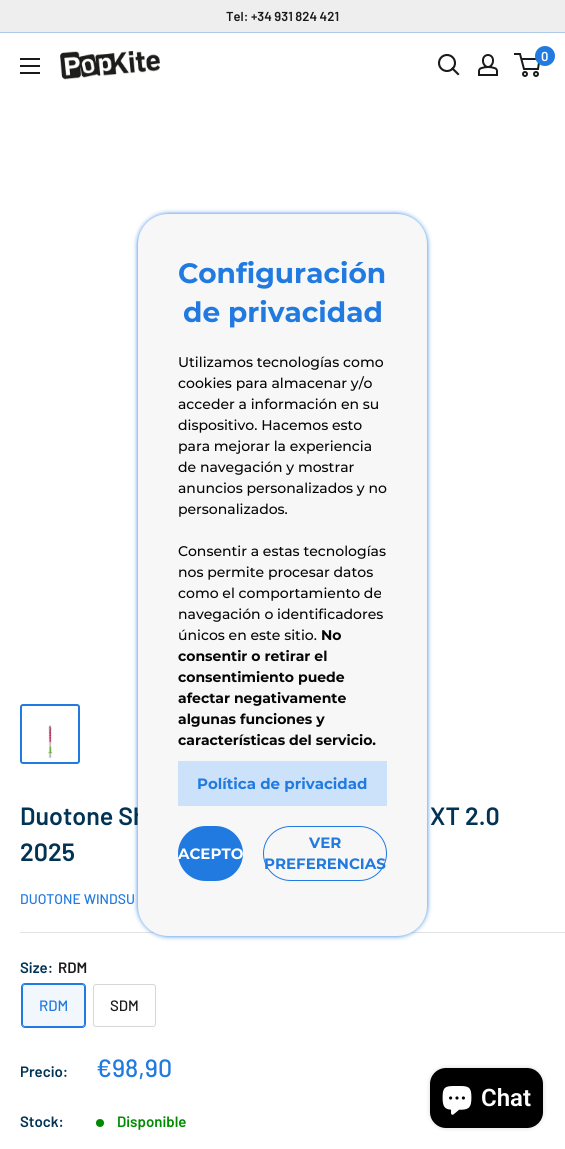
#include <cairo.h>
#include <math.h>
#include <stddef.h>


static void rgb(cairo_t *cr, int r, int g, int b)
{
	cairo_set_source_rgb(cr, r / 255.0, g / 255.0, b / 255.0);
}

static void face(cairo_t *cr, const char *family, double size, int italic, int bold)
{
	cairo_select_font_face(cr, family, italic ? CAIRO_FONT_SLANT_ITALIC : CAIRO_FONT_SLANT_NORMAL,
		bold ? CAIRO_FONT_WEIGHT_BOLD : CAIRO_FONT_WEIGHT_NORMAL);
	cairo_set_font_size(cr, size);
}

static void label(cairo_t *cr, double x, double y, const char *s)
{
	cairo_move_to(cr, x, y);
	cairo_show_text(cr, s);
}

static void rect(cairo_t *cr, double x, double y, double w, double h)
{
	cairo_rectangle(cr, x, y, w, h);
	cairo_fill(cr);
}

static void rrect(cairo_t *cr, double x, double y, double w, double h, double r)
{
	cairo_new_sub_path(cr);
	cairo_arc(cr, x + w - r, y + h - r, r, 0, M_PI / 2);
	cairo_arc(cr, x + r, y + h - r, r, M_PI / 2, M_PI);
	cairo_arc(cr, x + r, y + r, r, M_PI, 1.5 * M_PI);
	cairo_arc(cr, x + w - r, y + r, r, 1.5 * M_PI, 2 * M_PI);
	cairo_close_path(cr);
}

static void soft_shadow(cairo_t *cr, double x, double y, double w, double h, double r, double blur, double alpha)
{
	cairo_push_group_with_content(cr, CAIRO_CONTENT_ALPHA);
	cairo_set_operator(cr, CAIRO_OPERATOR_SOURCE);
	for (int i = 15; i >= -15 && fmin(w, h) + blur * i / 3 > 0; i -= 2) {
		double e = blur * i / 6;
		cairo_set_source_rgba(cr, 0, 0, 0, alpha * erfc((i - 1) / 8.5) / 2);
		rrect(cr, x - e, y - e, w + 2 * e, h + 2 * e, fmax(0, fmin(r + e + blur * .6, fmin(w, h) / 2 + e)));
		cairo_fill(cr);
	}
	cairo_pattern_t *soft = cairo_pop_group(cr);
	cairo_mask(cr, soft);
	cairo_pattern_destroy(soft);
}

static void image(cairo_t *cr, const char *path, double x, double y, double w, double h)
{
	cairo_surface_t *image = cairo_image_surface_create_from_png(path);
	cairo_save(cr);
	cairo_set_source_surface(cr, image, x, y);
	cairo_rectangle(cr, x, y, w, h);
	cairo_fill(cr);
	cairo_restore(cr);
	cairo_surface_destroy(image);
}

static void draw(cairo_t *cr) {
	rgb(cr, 238, 238, 238);
	cairo_paint(cr);
	rgb(cr, 176, 203, 234);
	rect(cr, 0, 32, 565, 1);
	face(cr, "Barlow SemiBold", 13, 0, 0);
	rgb(cr, 26, 26, 26);
	label(cr, 226, 21, "Tel: +34 931 824 421");
	rgb(cr, 255, 255, 255);
	rect(cr, 0, 33, 565, 1116);
	image(cr, "image0.png", 60, 51, 100, 29);
	cairo_new_path(cr);
	cairo_move_to(cr, 458, 74);
	cairo_line_to(cr, 452.5, 68.5);
	rgb(cr, 26, 26, 26);
	cairo_set_line_width(cr, 2.1);
	cairo_set_line_cap(cr, CAIRO_LINE_CAP_SQUARE);
	cairo_stroke(cr);
	cairo_arc(cr, 447, 63, 8, 0, 2 * M_PI);
	cairo_set_line_cap(cr, CAIRO_LINE_CAP_BUTT);
	cairo_stroke(cr);
	image(cr, "image1.png", 478, 54, 20, 22);
	cairo_arc(cr, 525, 74, 2, 0, 2 * M_PI);
	cairo_set_line_width(cr, 2);
	cairo_stroke(cr);
	cairo_arc(cr, 536, 74, 2, 0, 2 * M_PI);
	cairo_stroke(cr);
	cairo_new_path(cr);
	cairo_move_to(cr, 521.5, 59);
	cairo_line_to(cr, 539.5, 59);
	cairo_line_to(cr, 538, 69);
	cairo_line_to(cr, 524, 69);
	cairo_line_to(cr, 520, 54);
	cairo_line_to(cr, 514, 54);
	cairo_stroke(cr);
	rgb(cr, 33, 122, 224);
	cairo_arc(cr, 545, 56, 10, 0, 2 * M_PI);
	cairo_fill(cr);
	rgb(cr, 255, 255, 255);
	label(cr, 541, 61, "0");
	image(cr, "image2.png", 20, 58, 20, 16);
	rgb(cr, 225, 227, 228);
	rect(cr, 20, 932, 545, 1);
	rgb(cr, 33, 122, 224);
	soft_shadow(cr, 138, 214, 289, 722, 30, 2.5, 1);
	face(cr, "Barlow SemiBold", 25, 0, 0);
	rgb(cr, 1, 51, 84);
	label(cr, 20, 825, "Duotone Sh");
	rgb(cr, 247, 247, 247);
	rrect(cr, 138, 214, 289, 722, 30);
	cairo_fill(cr);
	face(cr, "Montserrat", 28, 0, 1);
	rgb(cr, 33, 122, 224);
	label(cr, 178, 283, "Configuración");
	label(cr, 183, 322, "de privacidad");
	face(cr, "Montserrat Medium", 14, 0, 0);
	rgb(cr, 5, 5, 5);
	label(cr, 178, 367, "Utilizamos tecnologías como");
	label(cr, 178, 388, "cookies para almacenar y/o");
	label(cr, 178, 409, "acceder a información en su");
	label(cr, 178, 430, "dispositivo. Hacemos esto");
	label(cr, 178, 451, "para mejorar la experiencia");
	label(cr, 178, 472, "de navegación y mostrar");
	label(cr, 178, 493, "anuncios personalizados y no");
	label(cr, 178, 514, "personalizados.");
	label(cr, 178, 556, "Consentir a estas tecnologías");
	label(cr, 178, 577, "nos permite procesar datos");
	label(cr, 178, 598, "como el comportamiento de");
	label(cr, 178, 619, "navegación o identificadores");
	label(cr, 178, 640, "únicos en este sitio.");
	face(cr, "Montserrat", 14, 0, 1);
	label(cr, 321, 640, "No");
	label(cr, 178, 661, "consentir o retirar el");
	label(cr, 178, 682, "consentimiento puede");
	label(cr, 178, 703, "afectar negativamente");
	label(cr, 178, 724, "algunas funciones y");
	label(cr, 178, 745, "características del servicio.");
	rgb(cr, 204, 226, 251);
	rect(cr, 178, 761, 209, 45);
	face(cr, "Montserrat", 15, 0, 1);
	rgb(cr, 33, 122, 224);
	label(cr, 197, 789, "Política de privacidad");
	rrect(cr, 178, 826, 65, 55, 27.5);
	cairo_fill(cr);
	rgb(cr, 255, 255, 255);
	label(cr, 178, 859, "ACEPTO");
	rrect(cr, 263.5, 826.5, 123, 54, 27);
	rgb(cr, 33, 122, 224);
	cairo_set_line_width(cr, 1);
	cairo_stroke(cr);
	label(cr, 309, 848, "VER");
	label(cr, 264, 869, "PREFERENCIAS");
	rrect(cr, 21, 705, 58, 58, 2);
	cairo_set_line_width(cr, 2);
	cairo_stroke(cr);
	image(cr, "image3.png", 48, 725, 5, 34);
	face(cr, "Barlow SemiBold", 25, 0, 0);
	rgb(cr, 1, 51, 84);
	label(cr, 430, 825, "XT 2.0");
	label(cr, 20, 861, "2025");
	face(cr, "Barlow Medium", 14, 0, 0);
	rgb(cr, 33, 122, 224);
	label(cr, 20, 904, "DUOTONE WINDSU");
	face(cr, "Barlow SemiBold", 15, 0, 0);
	rgb(cr, 1, 51, 84);
	label(cr, 20, 973, "Size:");
	rgb(cr, 26, 26, 26);
	label(cr, 58, 973, "RDM");
	rrect(cr, 21.5, 983.5, 64, 44, 3.5);
	rgb(cr, 33, 122, 224);
	cairo_set_line_width(cr, 1);
	cairo_stroke(cr);
	cairo_set_source_rgba(cr, 0.129, 0.478, 0.878, 0.06);
	rect(cr, 22, 984, 63, 43);
	rrect(cr, 22.5, 984.5, 62, 42, 2.5);
	rgb(cr, 33, 122, 224);
	cairo_stroke(cr);
	face(cr, "Barlow Medium", 15, 0, 0);
	label(cr, 39, 1011, "RDM");
	rrect(cr, 93.5, 984.5, 62, 42, 2.5);
	rgb(cr, 212, 214, 216);
	cairo_stroke(cr);
	rgb(cr, 26, 26, 26);
	label(cr, 110, 1011, "SDM");
	face(cr, "Barlow SemiBold", 15, 0, 0);
	rgb(cr, 1, 51, 84);
	label(cr, 20, 1077, "Precio:");
	face(cr, "Barlow Medium", 25, 0, 0);
	rgb(cr, 33, 122, 224);
	label(cr, 96, 1077, "€98,90");
	face(cr, "Barlow SemiBold", 15, 0, 0);
	rgb(cr, 1, 51, 84);
	label(cr, 20, 1127, "Stock:");
	rgb(cr, 0, 138, 0);
	cairo_new_path(cr);
	cairo_arc(cr, 100, 1123, 4, 0, 2 * M_PI);
	cairo_fill(cr);
	label(cr, 117, 1127, "Disponible");
	rgb(cr, 0, 0, 0);
	soft_shadow(cr, 430, 1068, 113, 60, 16, 2.5, 0.15);
	rgb(cr, 0, 0, 0);
	rrect(cr, 430, 1068, 113, 60, 16);
	cairo_fill(cr);
	image(cr, "image4.png", 442, 1086, 30, 29);
	face(cr, "Roboto SemiBold", 24, 0, 0);
	rgb(cr, 255, 255, 255);
	label(cr, 481, 1106, "Chat");
}

int main(void) {
	cairo_surface_t *surface = cairo_image_surface_create(CAIRO_FORMAT_RGB24, 565, 1149);
	cairo_t *cr = cairo_create(surface);
	cairo_font_options_t *options = cairo_font_options_create();
	cairo_font_options_set_hint_metrics(options, CAIRO_HINT_METRICS_OFF);
	cairo_font_options_set_hint_style(options, CAIRO_HINT_STYLE_NONE);
	cairo_set_font_options(cr, options);
	cairo_set_miter_limit(cr, 4);
	draw(cr);
	cairo_surface_write_to_png(surface, "render.png");
	cairo_font_options_destroy(options);
	cairo_destroy(cr);
	cairo_surface_destroy(surface);
	return 0;
}
